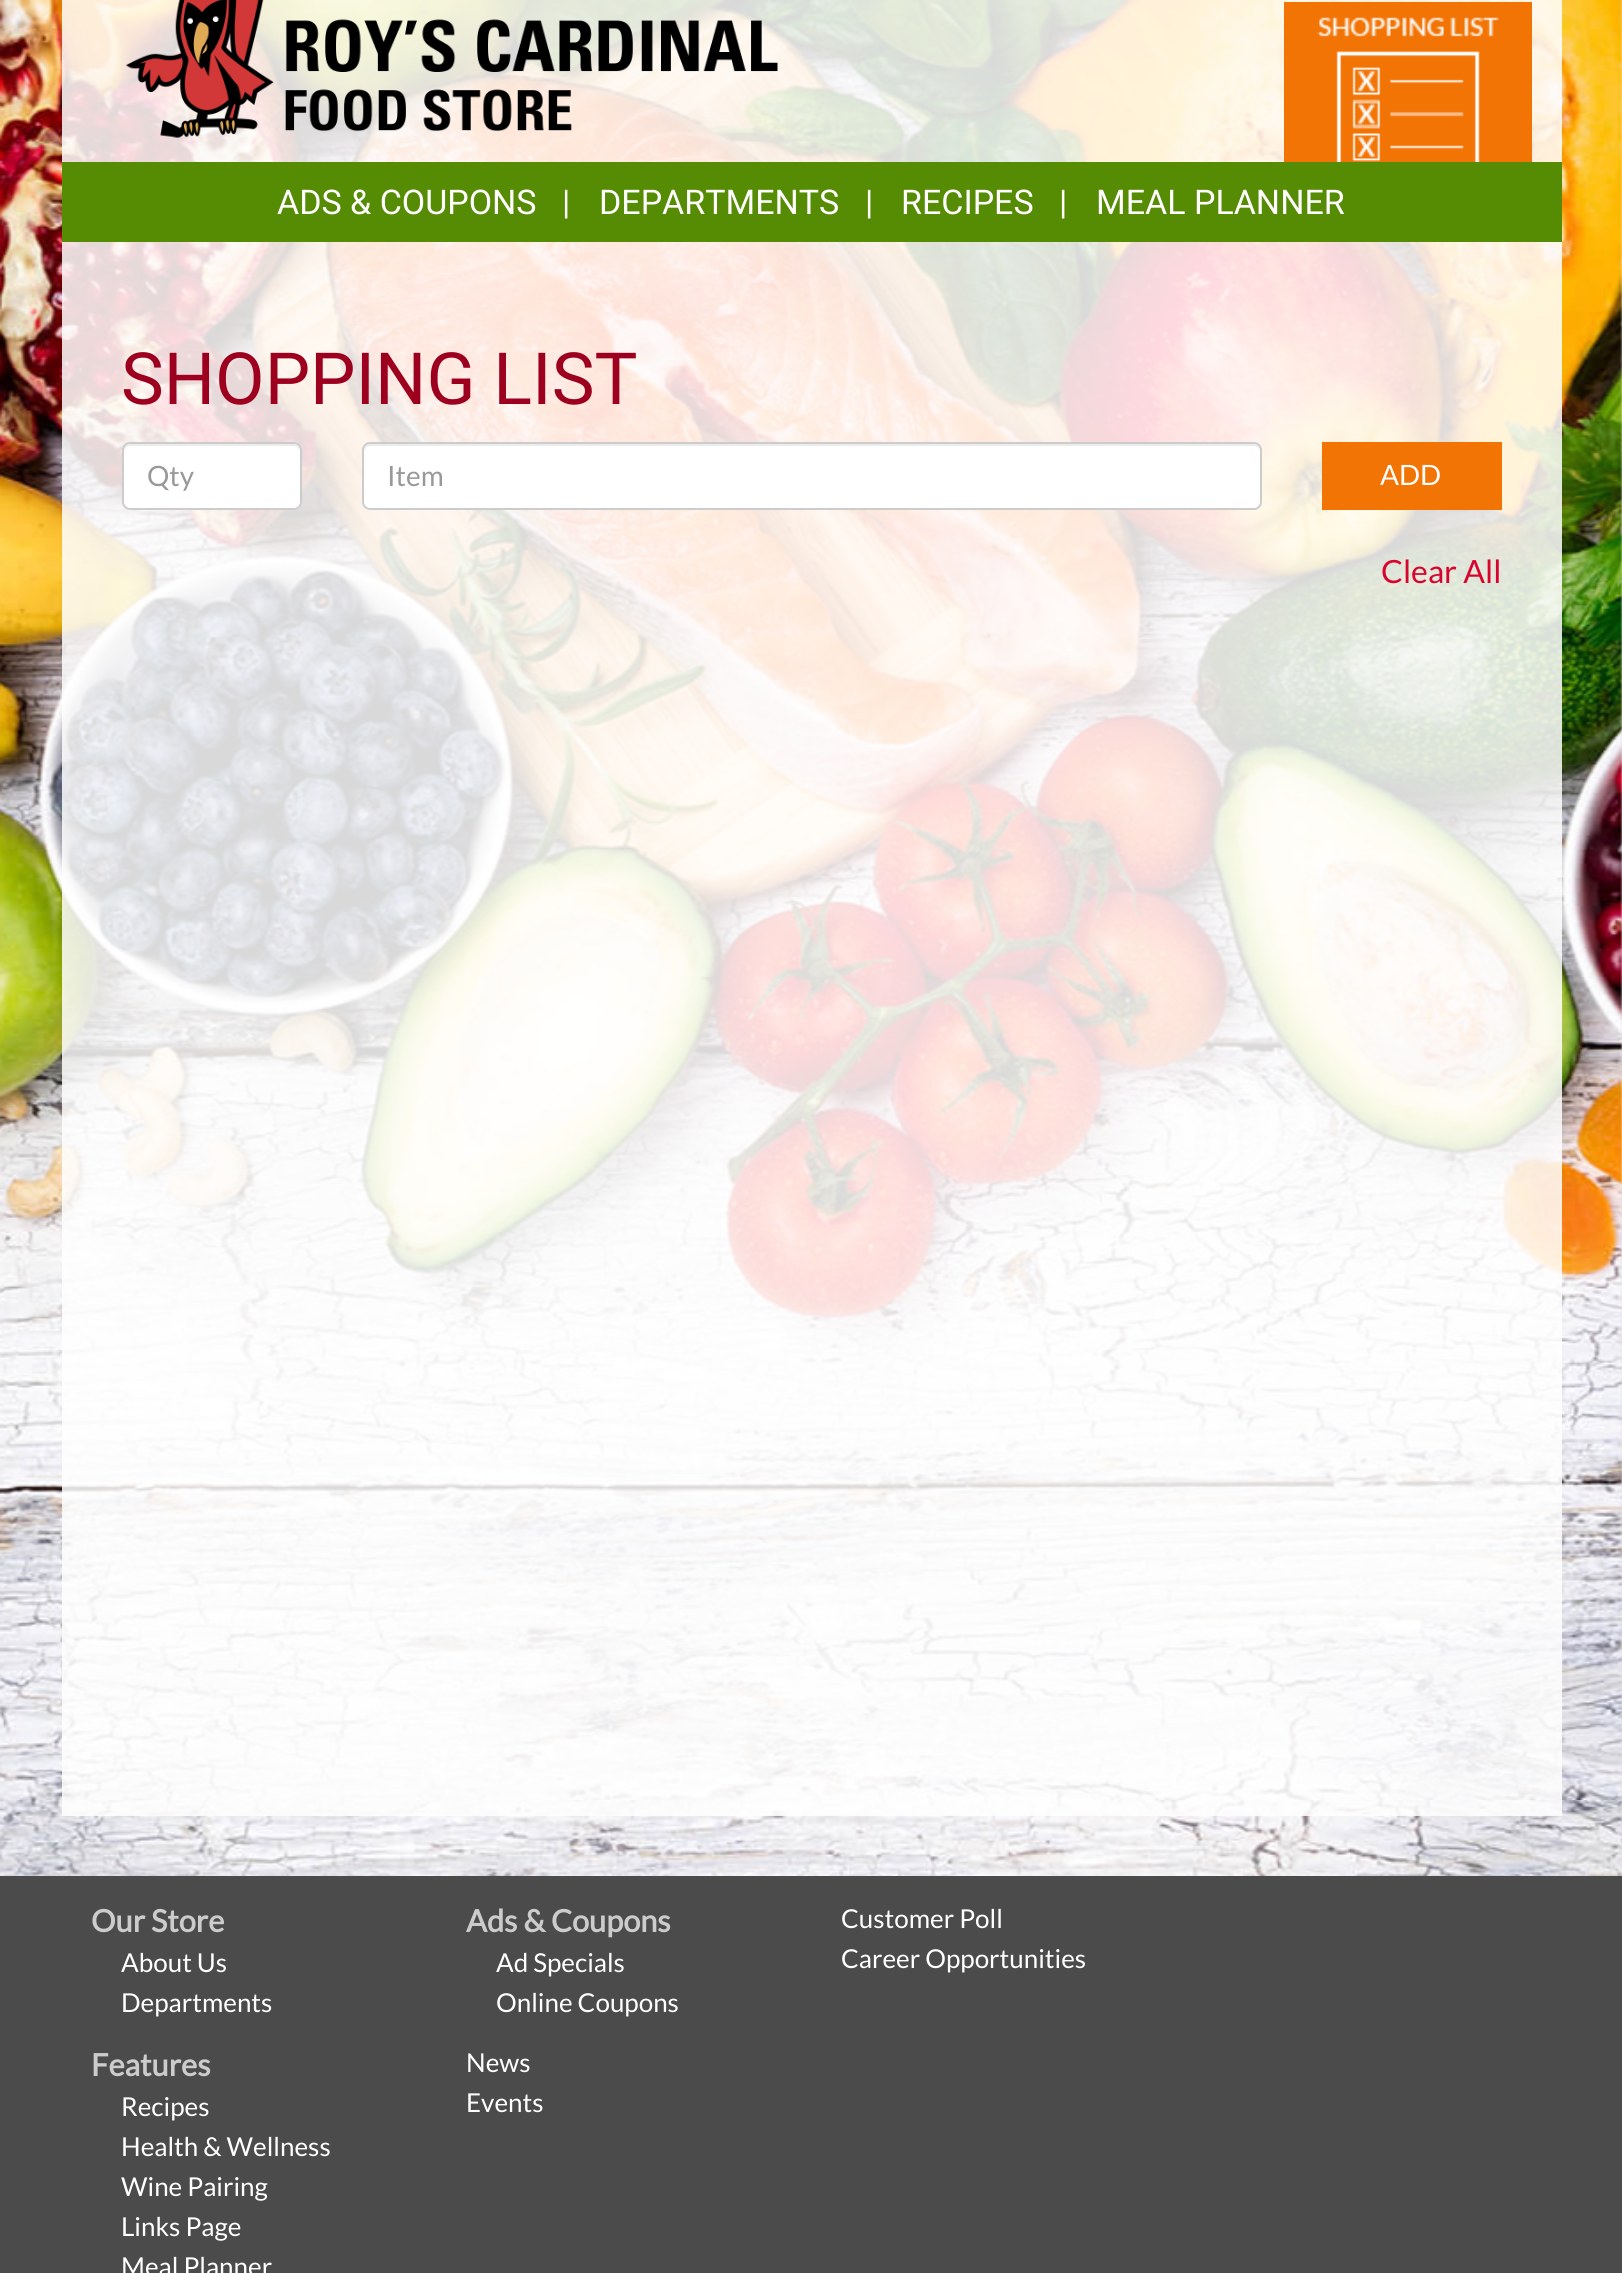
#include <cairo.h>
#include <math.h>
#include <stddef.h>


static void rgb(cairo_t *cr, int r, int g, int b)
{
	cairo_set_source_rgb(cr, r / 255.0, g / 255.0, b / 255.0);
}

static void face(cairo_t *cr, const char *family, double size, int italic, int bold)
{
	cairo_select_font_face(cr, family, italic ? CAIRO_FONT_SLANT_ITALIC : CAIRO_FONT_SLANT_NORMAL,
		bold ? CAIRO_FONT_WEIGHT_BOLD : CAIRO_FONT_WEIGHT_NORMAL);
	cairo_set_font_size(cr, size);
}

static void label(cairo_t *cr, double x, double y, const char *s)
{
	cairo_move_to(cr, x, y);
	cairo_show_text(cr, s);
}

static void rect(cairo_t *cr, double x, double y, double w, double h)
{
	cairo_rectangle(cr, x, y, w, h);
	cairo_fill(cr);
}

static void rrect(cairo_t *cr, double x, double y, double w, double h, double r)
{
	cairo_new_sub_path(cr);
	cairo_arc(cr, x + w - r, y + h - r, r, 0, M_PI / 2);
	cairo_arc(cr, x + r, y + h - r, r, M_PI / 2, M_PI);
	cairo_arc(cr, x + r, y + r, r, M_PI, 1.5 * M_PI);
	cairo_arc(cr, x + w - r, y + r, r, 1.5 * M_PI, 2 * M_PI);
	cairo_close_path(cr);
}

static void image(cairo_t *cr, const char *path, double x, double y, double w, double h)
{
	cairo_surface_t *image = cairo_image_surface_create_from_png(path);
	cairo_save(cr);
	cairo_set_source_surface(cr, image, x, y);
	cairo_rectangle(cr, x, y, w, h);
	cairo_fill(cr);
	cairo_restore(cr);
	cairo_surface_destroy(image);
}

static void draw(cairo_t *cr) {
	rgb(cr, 226, 224, 223);
	cairo_paint(cr);
	image(cr, "image0.png", 0, 0, 1622, 1876);
	cairo_set_source_rgba(cr, 1, 1, 1, 0.85);
	rect(cr, 62, 0, 1500, 162);
	image(cr, "image1.png", 125, 0, 653, 139);
	rgb(cr, 242, 116, 5);
	rect(cr, 1284, 2, 248, 160);
	image(cr, "image2.png", 1317, 17, 182, 145);
	rgb(cr, 85, 140, 3);
	rect(cr, 62, 162, 1500, 80);
	face(cr, "Roboto", 34, 0, 0);
	rgb(cr, 255, 255, 255);
	label(cr, 277, 214, "ADS & COUPONS");
	label(cr, 562, 214, "|");
	label(cr, 599, 214, "DEPARTMENTS");
	label(cr, 865, 214, "|");
	label(cr, 901, 214, "RECIPES");
	label(cr, 1059, 214, "|");
	label(cr, 1096, 214, "MEAL PLANNER");
	cairo_set_source_rgba(cr, 1, 1, 1, 0.85);
	rect(cr, 62, 242, 1500, 1574);
	face(cr, "Roboto", 72, 0, 0);
	rgb(cr, 157, 0, 30);
	label(cr, 121, 404, "SHOPPING LIST");
	rgb(cr, 255, 255, 255);
	rrect(cr, 122, 442, 180, 68, 8);
	cairo_fill(cr);
	rgb(cr, 236, 236, 236);
	cairo_new_path(cr);
	cairo_move_to(cr, 130, 446);
	cairo_line_to(cr, 294, 446);
	cairo_curve_to(cr, 297, 446, 300, 449, 300, 452);
	cairo_line_to(cr, 300, 450);
	cairo_curve_to(cr, 300, 447, 297, 444, 294, 444);
	cairo_line_to(cr, 130, 444);
	cairo_curve_to(cr, 127, 444, 124, 447, 124, 450);
	cairo_line_to(cr, 124, 452);
	cairo_curve_to(cr, 124, 449, 127, 446, 130, 446);
	cairo_close_path(cr);
	cairo_fill(cr);
	rrect(cr, 123, 443, 178, 66, 7);
	rgb(cr, 204, 204, 204);
	cairo_stroke(cr);
	face(cr, "Lato", 28, 0, 0);
	rgb(cr, 153, 153, 153);
	label(cr, 147, 486, "Qty");
	rgb(cr, 255, 255, 255);
	rrect(cr, 362, 442, 900, 68, 8);
	cairo_fill(cr);
	rgb(cr, 236, 236, 236);
	cairo_new_path(cr);
	cairo_move_to(cr, 370, 446);
	cairo_line_to(cr, 1254, 446);
	cairo_curve_to(cr, 1257, 446, 1260, 449, 1260, 452);
	cairo_line_to(cr, 1260, 450);
	cairo_curve_to(cr, 1260, 447, 1257, 444, 1254, 444);
	cairo_line_to(cr, 370, 444);
	cairo_curve_to(cr, 367, 444, 364, 447, 364, 450);
	cairo_line_to(cr, 364, 452);
	cairo_curve_to(cr, 364, 449, 367, 446, 370, 446);
	cairo_close_path(cr);
	cairo_fill(cr);
	rrect(cr, 363, 443, 898, 66, 7);
	rgb(cr, 204, 204, 204);
	cairo_stroke(cr);
	rgb(cr, 153, 153, 153);
	label(cr, 387, 486, "Item");
	rgb(cr, 242, 116, 5);
	rect(cr, 1322, 442, 180, 68);
	rgb(cr, 255, 255, 255);
	label(cr, 1380, 485, "ADD");
	face(cr, "Lato", 32, 0, 0);
	rgb(cr, 217, 4, 45);
	label(cr, 1381, 583, "Clear All");
	rgb(cr, 75, 75, 75);
	rect(cr, 0, 1876, 1622, 397);
	face(cr, "Lato", 30.75, 0, 1);
	rgb(cr, 204, 204, 204);
	label(cr, 91, 1932, "Our Store");
	face(cr, "Lato", 26, 0, 0);
	rgb(cr, 255, 255, 255);
	label(cr, 121, 1972, "About Us");
	label(cr, 121, 2012, "Departments");
	face(cr, "Lato", 30.75, 0, 1);
	rgb(cr, 204, 204, 204);
	label(cr, 91, 2076, "Features");
	face(cr, "Lato", 26, 0, 0);
	rgb(cr, 255, 255, 255);
	label(cr, 121, 2116, "Recipes");
	label(cr, 121, 2156, "Health & Wellness");
	label(cr, 121, 2196, "Wine Pairing");
	label(cr, 121, 2236, "Links Page");
	label(cr, 121, 2276, "Meal Planner");
	face(cr, "Lato", 30.75, 0, 1);
	rgb(cr, 204, 204, 204);
	label(cr, 466, 1932, "Ads & Coupons");
	face(cr, "Lato", 26, 0, 0);
	rgb(cr, 255, 255, 255);
	label(cr, 496, 1972, "Ad Specials");
	label(cr, 496, 2012, "Online Coupons");
	label(cr, 466, 2072, "News");
	label(cr, 466, 2112, "Events");
	label(cr, 841, 1928, "Customer Poll");
	label(cr, 841, 1968, "Career Opportunities");
}

int main(void) {
	cairo_surface_t *surface = cairo_image_surface_create(CAIRO_FORMAT_RGB24, 1622, 2273);
	cairo_t *cr = cairo_create(surface);
	cairo_font_options_t *options = cairo_font_options_create();
	cairo_font_options_set_hint_metrics(options, CAIRO_HINT_METRICS_OFF);
	cairo_font_options_set_hint_style(options, CAIRO_HINT_STYLE_NONE);
	cairo_set_font_options(cr, options);
	cairo_set_miter_limit(cr, 4);
	draw(cr);
	cairo_surface_write_to_png(surface, "render.png");
	cairo_font_options_destroy(options);
	cairo_destroy(cr);
	cairo_surface_destroy(surface);
	return 0;
}
